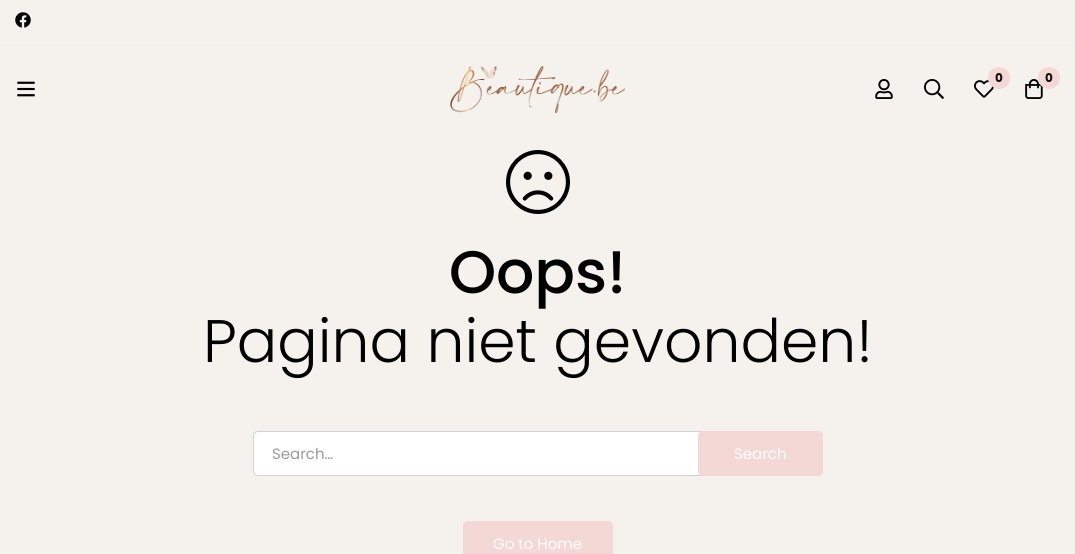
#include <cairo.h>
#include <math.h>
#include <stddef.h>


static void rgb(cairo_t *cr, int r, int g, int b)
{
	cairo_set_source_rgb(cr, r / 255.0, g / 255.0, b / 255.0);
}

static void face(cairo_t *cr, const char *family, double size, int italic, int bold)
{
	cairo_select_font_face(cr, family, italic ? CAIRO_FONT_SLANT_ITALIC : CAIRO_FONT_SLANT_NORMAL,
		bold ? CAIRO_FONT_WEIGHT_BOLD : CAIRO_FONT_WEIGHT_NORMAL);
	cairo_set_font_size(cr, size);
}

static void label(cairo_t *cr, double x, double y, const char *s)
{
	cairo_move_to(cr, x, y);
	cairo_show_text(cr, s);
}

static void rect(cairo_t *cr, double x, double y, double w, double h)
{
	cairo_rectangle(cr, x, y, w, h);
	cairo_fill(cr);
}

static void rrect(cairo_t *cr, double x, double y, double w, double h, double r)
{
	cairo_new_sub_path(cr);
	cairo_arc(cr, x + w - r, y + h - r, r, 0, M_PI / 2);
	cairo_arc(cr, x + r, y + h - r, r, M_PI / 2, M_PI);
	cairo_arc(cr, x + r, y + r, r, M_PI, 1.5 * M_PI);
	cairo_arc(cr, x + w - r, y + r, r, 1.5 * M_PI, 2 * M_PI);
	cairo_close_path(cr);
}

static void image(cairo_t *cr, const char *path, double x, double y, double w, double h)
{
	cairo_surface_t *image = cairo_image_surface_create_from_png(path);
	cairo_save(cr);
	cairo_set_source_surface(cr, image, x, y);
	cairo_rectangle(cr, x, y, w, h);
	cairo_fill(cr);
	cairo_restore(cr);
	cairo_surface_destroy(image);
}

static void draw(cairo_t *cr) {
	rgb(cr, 245, 241, 237);
	cairo_paint(cr);
	rgb(cr, 238, 238, 238);
	rect(cr, 0, 40, 1075, 1);
	image(cr, "image0.png", 15, 12, 16, 16);
	image(cr, "image1.png", 450, 66, 175, 47);
	image(cr, "image2.png", 974, 80, 20, 18);
	rgb(cr, 244, 216, 213);
	cairo_arc(cr, 999, 78, 11, 0, 2 * M_PI);
	cairo_fill(cr);
	face(cr, "Poppins", 12, 0, 1);
	rgb(cr, 10, 10, 10);
	label(cr, 995, 82, "0");
	image(cr, "image3.png", 1025, 79, 18, 20);
	rgb(cr, 244, 216, 213);
	cairo_arc(cr, 1049, 78, 11, 0, 2 * M_PI);
	cairo_fill(cr);
	rgb(cr, 10, 10, 10);
	label(cr, 1045, 82, "0");
	image(cr, "image4.png", 875, 79, 18, 20);
	image(cr, "image5.png", 924, 79, 20, 20);
	image(cr, "image6.png", 17, 81, 18, 16);
	image(cr, "image7.png", 506, 150, 64, 64);
	face(cr, "Poppins Medium", 60, 0, 0);
	rgb(cr, 0, 0, 0);
	label(cr, 449, 293, "Oops!");
	face(cr, "Poppins Light", 60, 0, 0);
	label(cr, 203, 362, "Pagina niet gevonden!");
	rgb(cr, 255, 255, 255);
	rrect(cr, 253.5, 431.5, 569, 44, 4.5);
	cairo_fill_preserve(cr);
	rgb(cr, 210, 210, 210);
	cairo_set_line_width(cr, 1);
	cairo_stroke(cr);
	face(cr, "Poppins", 15, 0, 0);
	rgb(cr, 155, 155, 155);
	label(cr, 272, 459, "Search…");
	rgb(cr, 244, 216, 213);
	rrect(cr, 698, 431, 125, 45, 5);
	cairo_fill(cr);
	rgb(cr, 255, 255, 255);
	label(cr, 734, 459, "Search");
	rgb(cr, 244, 216, 213);
	rrect(cr, 463, 521, 150, 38, 5);
	cairo_fill(cr);
	rgb(cr, 255, 255, 255);
	label(cr, 493, 549, "Go to Home");
}

int main(void) {
	cairo_surface_t *surface = cairo_image_surface_create(CAIRO_FORMAT_RGB24, 1075, 554);
	cairo_t *cr = cairo_create(surface);
	cairo_font_options_t *options = cairo_font_options_create();
	cairo_font_options_set_hint_metrics(options, CAIRO_HINT_METRICS_OFF);
	cairo_font_options_set_hint_style(options, CAIRO_HINT_STYLE_NONE);
	cairo_set_font_options(cr, options);
	cairo_set_miter_limit(cr, 4);
	draw(cr);
	cairo_surface_write_to_png(surface, "render.png");
	cairo_font_options_destroy(options);
	cairo_destroy(cr);
	cairo_surface_destroy(surface);
	return 0;
}
